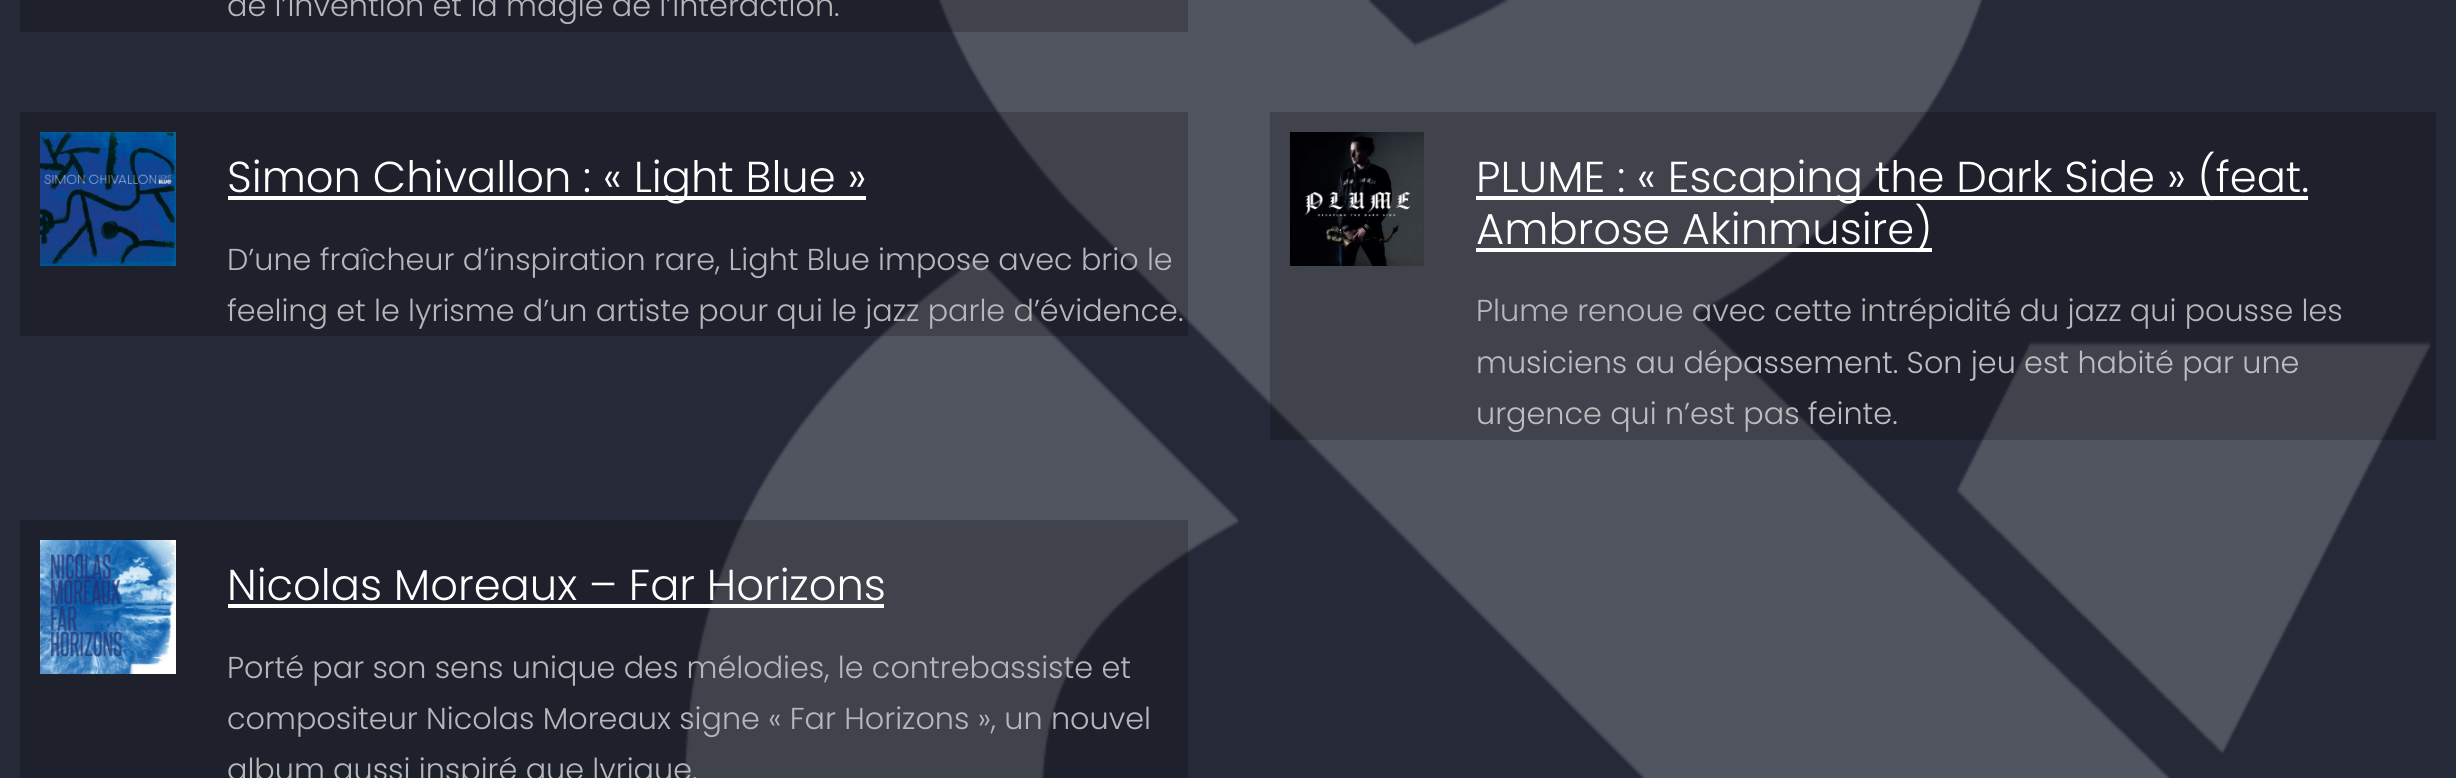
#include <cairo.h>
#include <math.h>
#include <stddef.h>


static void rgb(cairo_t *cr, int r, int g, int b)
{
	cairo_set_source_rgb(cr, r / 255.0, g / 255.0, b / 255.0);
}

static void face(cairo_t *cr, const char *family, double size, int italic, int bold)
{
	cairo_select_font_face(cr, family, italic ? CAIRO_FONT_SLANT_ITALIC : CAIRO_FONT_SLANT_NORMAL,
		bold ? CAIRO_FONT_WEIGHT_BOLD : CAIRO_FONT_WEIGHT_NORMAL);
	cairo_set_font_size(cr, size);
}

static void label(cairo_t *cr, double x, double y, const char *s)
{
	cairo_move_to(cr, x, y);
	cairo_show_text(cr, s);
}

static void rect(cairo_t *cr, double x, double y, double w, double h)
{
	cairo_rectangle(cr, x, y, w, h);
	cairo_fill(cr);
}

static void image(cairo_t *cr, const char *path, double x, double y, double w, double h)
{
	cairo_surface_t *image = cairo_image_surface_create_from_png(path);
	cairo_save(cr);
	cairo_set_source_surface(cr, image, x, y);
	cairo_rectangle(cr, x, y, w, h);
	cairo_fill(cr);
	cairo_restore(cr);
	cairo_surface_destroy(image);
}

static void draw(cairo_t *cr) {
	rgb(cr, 38, 42, 56);
	cairo_paint(cr);
	image(cr, "image0.png", 684, 0, 1747, 778);
	cairo_set_source_rgba(cr, 0, 0, 0, 0.21);
	rect(cr, 20, 0, 1168, 32);
	face(cr, "Poppins Light", 30.25, 0, 0);
	rgb(cr, 182, 183, 186);
	label(cr, 227, 16, "de l’invention et la magie de l’interaction.");
	cairo_set_source_rgba(cr, 0, 0, 0, 0.21);
	rect(cr, 20, 112, 1168, 224);
	image(cr, "image1.png", 40, 132, 136, 134);
	rgb(cr, 255, 255, 255);
	rect(cr, 228, 196, 638, 4);
	face(cr, "Poppins Light", 43.25, 0, 0);
	label(cr, 227, 192, "Simon Chivallon : « Light Blue »");
	face(cr, "Poppins Light", 30.25, 0, 0);
	rgb(cr, 182, 183, 186);
	label(cr, 227, 270, "D’une fraîcheur d’inspiration rare, Light Blue impose avec brio le");
	label(cr, 227, 321, "feeling et le lyrisme d’un artiste pour qui le jazz parle d’évidence.");
	cairo_set_source_rgba(cr, 0, 0, 0, 0.21);
	rect(cr, 1270, 112, 1166, 328);
	image(cr, "image2.png", 1290, 132, 134, 134);
	rgb(cr, 255, 255, 255);
	rect(cr, 1476, 196, 832, 4);
	face(cr, "Poppins Light", 43.25, 0, 0);
	label(cr, 1476, 192, "PLUME : « Escaping the Dark Side » (feat.");
	rect(cr, 1476, 248, 456, 4);
	label(cr, 1476, 244, "Ambrose Akinmusire)");
	face(cr, "Poppins Light", 30.25, 0, 0);
	rgb(cr, 182, 183, 186);
	label(cr, 1476, 321, "Plume renoue avec cette intrépidité du jazz qui pousse les");
	rgb(cr, 189, 189, 192);
	label(cr, 1476, 373, "musiciens au dépassement. Son jeu est habité par une");
	label(cr, 1476, 424, "urgence qui n’est pas feinte.");
	cairo_set_source_rgba(cr, 0, 0, 0, 0.21);
	rect(cr, 20, 520, 1168, 258);
	image(cr, "image3.png", 40, 540, 136, 134);
	face(cr, "Poppins Light", 43.25, 0, 0);
	rgb(cr, 255, 255, 255);
	label(cr, 227, 600, "Nicolas Moreaux – Far Horizons");
	rect(cr, 228, 604, 656, 4);
	face(cr, "Poppins Light", 30.25, 0, 0);
	rgb(cr, 182, 183, 186);
	label(cr, 227, 678, "Porté par son sens unique des mélodies, le contrebassiste et");
	label(cr, 227, 729, "compositeur Nicolas Moreaux signe « Far Horizons », un nouvel");
	label(cr, 227, 780, "album aussi inspiré que lyrique.");
}

int main(void) {
	cairo_surface_t *surface = cairo_image_surface_create(CAIRO_FORMAT_RGB24, 2456, 778);
	cairo_t *cr = cairo_create(surface);
	cairo_font_options_t *options = cairo_font_options_create();
	cairo_font_options_set_hint_metrics(options, CAIRO_HINT_METRICS_OFF);
	cairo_font_options_set_hint_style(options, CAIRO_HINT_STYLE_NONE);
	cairo_set_font_options(cr, options);
	cairo_set_miter_limit(cr, 4);
	draw(cr);
	cairo_surface_write_to_png(surface, "render.png");
	cairo_font_options_destroy(options);
	cairo_destroy(cr);
	cairo_surface_destroy(surface);
	return 0;
}
